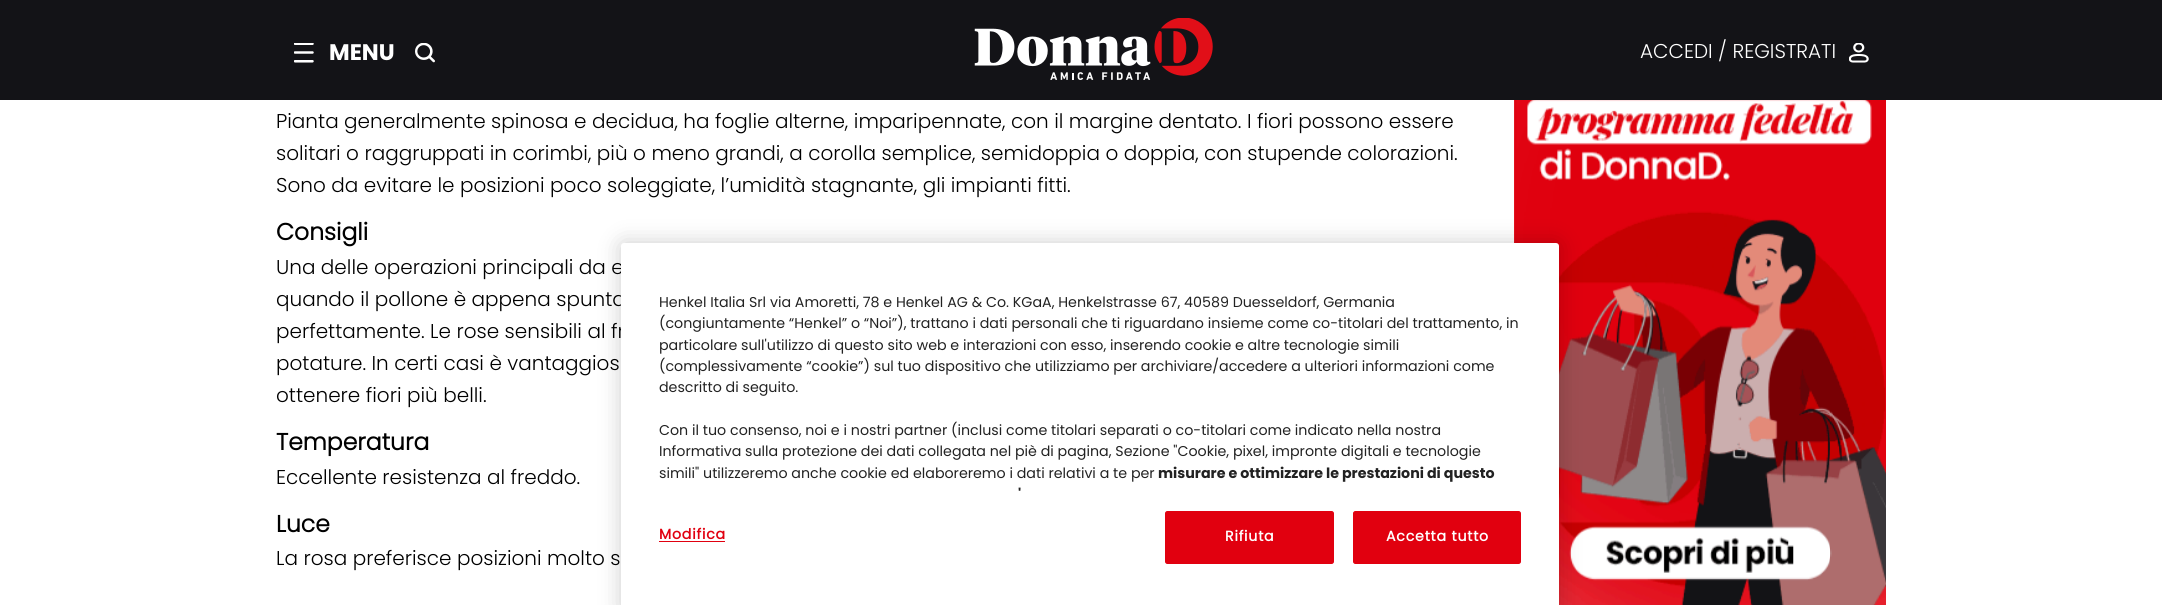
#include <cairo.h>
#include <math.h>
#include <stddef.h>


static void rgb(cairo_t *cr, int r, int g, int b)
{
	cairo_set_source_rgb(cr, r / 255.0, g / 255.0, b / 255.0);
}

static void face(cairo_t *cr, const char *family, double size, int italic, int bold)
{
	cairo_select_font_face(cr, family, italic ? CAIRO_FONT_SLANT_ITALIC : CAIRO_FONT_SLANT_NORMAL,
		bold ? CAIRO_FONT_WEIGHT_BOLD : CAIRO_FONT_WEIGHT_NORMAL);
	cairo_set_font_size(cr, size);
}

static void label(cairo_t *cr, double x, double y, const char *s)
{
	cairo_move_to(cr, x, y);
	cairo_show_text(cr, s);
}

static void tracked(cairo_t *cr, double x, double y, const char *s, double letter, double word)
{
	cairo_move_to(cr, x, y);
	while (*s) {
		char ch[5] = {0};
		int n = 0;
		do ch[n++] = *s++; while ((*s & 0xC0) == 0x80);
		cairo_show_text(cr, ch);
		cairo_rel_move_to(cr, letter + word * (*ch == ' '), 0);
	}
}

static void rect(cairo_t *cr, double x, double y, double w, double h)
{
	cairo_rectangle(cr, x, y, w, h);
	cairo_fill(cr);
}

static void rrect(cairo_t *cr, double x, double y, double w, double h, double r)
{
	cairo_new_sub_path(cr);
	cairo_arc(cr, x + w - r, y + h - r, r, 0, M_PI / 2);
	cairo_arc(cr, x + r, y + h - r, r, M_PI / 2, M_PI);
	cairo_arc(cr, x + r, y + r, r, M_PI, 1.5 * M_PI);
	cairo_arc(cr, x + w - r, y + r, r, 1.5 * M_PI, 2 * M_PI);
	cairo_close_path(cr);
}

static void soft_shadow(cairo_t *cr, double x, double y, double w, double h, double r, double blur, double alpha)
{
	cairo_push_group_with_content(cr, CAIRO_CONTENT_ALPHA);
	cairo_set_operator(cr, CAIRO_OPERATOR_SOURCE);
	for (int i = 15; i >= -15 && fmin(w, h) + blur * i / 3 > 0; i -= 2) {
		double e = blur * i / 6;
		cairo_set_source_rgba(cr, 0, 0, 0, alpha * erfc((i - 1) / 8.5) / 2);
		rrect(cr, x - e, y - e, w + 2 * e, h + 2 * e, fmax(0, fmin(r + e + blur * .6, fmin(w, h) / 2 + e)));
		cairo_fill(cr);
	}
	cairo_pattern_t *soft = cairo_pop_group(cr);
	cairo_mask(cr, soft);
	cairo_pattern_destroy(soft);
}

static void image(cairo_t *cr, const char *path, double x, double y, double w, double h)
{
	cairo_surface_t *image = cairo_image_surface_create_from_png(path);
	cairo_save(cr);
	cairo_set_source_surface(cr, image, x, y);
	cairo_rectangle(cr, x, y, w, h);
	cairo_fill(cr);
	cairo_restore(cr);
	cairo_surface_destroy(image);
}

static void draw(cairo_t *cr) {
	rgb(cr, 255, 255, 255);
	cairo_paint(cr);
	rgb(cr, 19, 19, 23);
	rect(cr, 0, 0, 2162, 100);
	image(cr, "image0.png", 294, 43, 20, 20);
	face(cr, "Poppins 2", 22.5, 0, 1);
	rgb(cr, 255, 255, 255);
	label(cr, 329, 60, "MENU");
	image(cr, "image1.png", 415, 43, 20, 20);
	image(cr, "image2.png", 974, 18, 239, 62);
	face(cr, "Poppins Light", 20, 0, 0);
	label(cr, 1640, 58, "ACCEDI / REGISTRATI");
	image(cr, "image3.png", 1849, 43, 20, 20);
	rgb(cr, 0, 0, 0);
	label(cr, 276, 128, "Pianta generalmente spinosa e decidua, ha foglie alterne, imparipennate, con il margine dentato. I fiori possono essere");
	label(cr, 276, 160, "solitari o raggruppati in corimbi, più o meno grandi, a corolla semplice, semidoppia o doppia, con stupende colorazioni.");
	label(cr, 276, 192, "Sono da evitare le posizioni poco soleggiate, l’umidità stagnante, gli impianti fitti.");
	face(cr, "Poppins", 23.5, 0, 1);
	label(cr, 276, 240, "Consigli");
	face(cr, "Poppins Light", 20, 0, 0);
	label(cr, 276, 274, "Una delle operazioni principali da e");
	label(cr, 276, 306, "quando il pollone è appena spunta");
	label(cr, 276, 338, "perfettamente. Le rose sensibili al fr");
	label(cr, 276, 370, "potature. In certi casi è vantaggios");
	label(cr, 276, 402, "ottenere fiori più belli.");
	face(cr, "Poppins", 23.5, 0, 1);
	label(cr, 276, 450, "Temperatura");
	face(cr, "Poppins Light", 20, 0, 0);
	label(cr, 276, 484, "Eccellente resistenza al freddo.");
	face(cr, "Poppins", 23.5, 0, 1);
	label(cr, 276, 532, "Luce");
	face(cr, "Poppins Light", 20, 0, 0);
	label(cr, 276, 565, "La rosa preferisce posizioni molto s");
	image(cr, "image4.png", 1514, 100, 372, 505);
	rgb(cr, 0, 0, 0);
	soft_shadow(cr, 621, 243, 938, 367, 3, 11, 0.2);
	rgb(cr, 255, 255, 255);
	rrect(cr, 621, 243, 938, 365, 3);
	cairo_fill(cr);
	face(cr, "Poppins", 14.23, 0, 0);
	rgb(cr, 34, 34, 34);
	label(cr, 659, 307, "Henkel Italia Srl via Amoretti, 78 e Henkel AG & Co. KGaA, Henkelstrasse 67, 40589 Duesseldorf, Germania");
	label(cr, 659, 328, "(congiuntamente “Henkel” o “Noi”), trattano i dati personali che ti riguardano insieme come co-titolari del trattamento, in");
	label(cr, 659, 350, "particolare sull'utilizzo di questo sito web e interazioni con esso, inserendo cookie e altre tecnologie simili");
	label(cr, 659, 371, "(complessivamente “cookie”) sul tuo dispositivo che utilizziamo per archiviare/accedere a ulteriori informazioni come");
	label(cr, 659, 392, "descritto di seguito.");
	label(cr, 659, 435, "Con il tuo consenso, noi e i nostri partner (inclusi come titolari separati o co-titolari come indicato nella nostra");
	label(cr, 659, 456, "Informativa sulla protezione dei dati collegata nel piè di pagina, Sezione \"Cookie, pixel, impronte digitali e tecnologie");
	label(cr, 659, 478, "simili\" utilizzeremo anche cookie ed elaboreremo i dati relativi a te per");
	face(cr, "Poppins 2", 14.23, 0, 1);
	label(cr, 1158, 478, "misurare e ottimizzare le prestazioni di questo");
	label(cr, 1018, 499, "'");
	face(cr, "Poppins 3", 14.23, 0, 1);
	rgb(cr, 225, 0, 15);
	tracked(cr, 659, 539, "Modifica", 0.75, 0);
	rect(cr, 659, 541, 66, 1);
	rrect(cr, 1165.5, 511.5, 168, 52, 2);
	cairo_fill_preserve(cr);
	cairo_set_line_width(cr, 1);
	cairo_stroke(cr);
	rgb(cr, 255, 255, 255);
	tracked(cr, 1225, 541, "Rifiuta", 0.75, 0);
	rgb(cr, 225, 0, 15);
	rrect(cr, 1353.5, 511.5, 167, 52, 2);
	cairo_fill_preserve(cr);
	cairo_stroke(cr);
	rgb(cr, 255, 255, 255);
	tracked(cr, 1386, 541, "Accetta tutto", 0.75, 0);
}

int main(void) {
	cairo_surface_t *surface = cairo_image_surface_create(CAIRO_FORMAT_RGB24, 2162, 605);
	cairo_t *cr = cairo_create(surface);
	cairo_font_options_t *options = cairo_font_options_create();
	cairo_font_options_set_hint_metrics(options, CAIRO_HINT_METRICS_OFF);
	cairo_font_options_set_hint_style(options, CAIRO_HINT_STYLE_NONE);
	cairo_set_font_options(cr, options);
	cairo_set_miter_limit(cr, 4);
	draw(cr);
	cairo_surface_write_to_png(surface, "render.png");
	cairo_font_options_destroy(options);
	cairo_destroy(cr);
	cairo_surface_destroy(surface);
	return 0;
}
